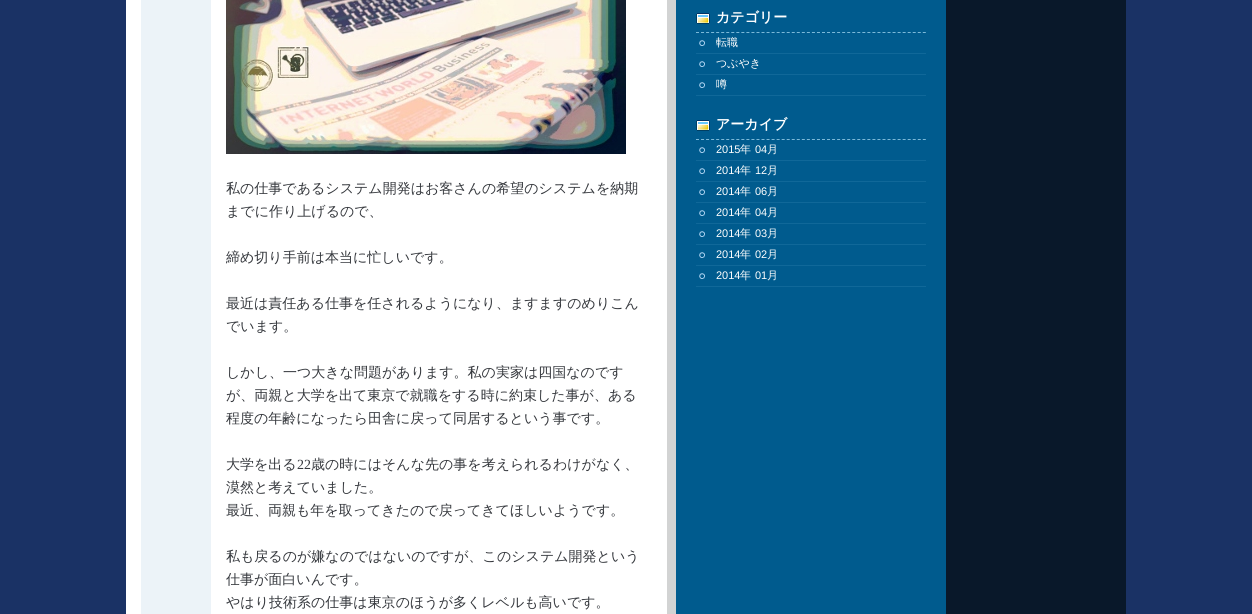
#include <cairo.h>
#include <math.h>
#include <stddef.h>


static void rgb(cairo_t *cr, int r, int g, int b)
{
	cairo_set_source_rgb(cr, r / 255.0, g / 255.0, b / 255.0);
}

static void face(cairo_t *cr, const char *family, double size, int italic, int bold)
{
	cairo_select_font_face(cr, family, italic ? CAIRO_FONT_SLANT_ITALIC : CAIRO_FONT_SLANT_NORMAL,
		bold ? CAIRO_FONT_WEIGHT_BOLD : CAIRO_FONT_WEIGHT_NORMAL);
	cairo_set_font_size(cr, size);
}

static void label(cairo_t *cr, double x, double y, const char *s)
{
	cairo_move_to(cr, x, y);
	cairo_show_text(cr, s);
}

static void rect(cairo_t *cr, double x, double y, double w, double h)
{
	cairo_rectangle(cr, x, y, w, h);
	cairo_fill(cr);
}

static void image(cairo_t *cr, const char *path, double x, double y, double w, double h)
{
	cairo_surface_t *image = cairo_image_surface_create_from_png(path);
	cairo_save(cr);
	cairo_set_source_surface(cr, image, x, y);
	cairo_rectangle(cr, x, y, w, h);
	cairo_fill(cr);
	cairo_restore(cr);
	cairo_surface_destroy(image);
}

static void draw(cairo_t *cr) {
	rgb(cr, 26, 50, 101);
	cairo_paint(cr);
	rgb(cr, 255, 255, 255);
	rect(cr, 126, 0, 15, 614);
	image(cr, "image0.png", 141, 0, 985, 614);
	image(cr, "image1.png", 696, 13, 14, 11);
	cairo_new_path(cr);
	cairo_move_to(cr, 696, 32.5);
	cairo_line_to(cr, 926, 32.5);
	rgb(cr, 123, 185, 217);
	cairo_set_line_width(cr, 1);
	cairo_set_dash(cr, (double[]){3, 2.04}, 2, 0);
	cairo_stroke(cr);
	face(cr, "WenQuanYi Zen Hei", 14, 0, 1);
	rgb(cr, 255, 255, 255);
	label(cr, 716, 22, "カテゴリー");
	image(cr, "image2.png", 699, 40, 6, 6);
	rgb(cr, 16, 104, 153);
	rect(cr, 696, 53, 230, 1);
	face(cr, "WenQuanYi Zen Hei Medium", 11, 0, 0);
	rgb(cr, 255, 255, 255);
	label(cr, 716, 46, "転職");
	image(cr, "image2.png", 699, 61, 6, 6);
	rgb(cr, 16, 104, 153);
	rect(cr, 696, 74, 230, 1);
	rgb(cr, 255, 255, 255);
	label(cr, 716, 67, "つぶやき");
	image(cr, "image2.png", 699, 82, 6, 6);
	rgb(cr, 16, 104, 153);
	rect(cr, 696, 95, 230, 1);
	rgb(cr, 255, 255, 255);
	label(cr, 716, 88, "噂");
	image(cr, "image1.png", 696, 120, 14, 11);
	cairo_new_path(cr);
	cairo_move_to(cr, 696, 139.5);
	cairo_line_to(cr, 926, 139.5);
	rgb(cr, 123, 185, 217);
	cairo_stroke(cr);
	face(cr, "WenQuanYi Zen Hei", 14, 0, 1);
	rgb(cr, 255, 255, 255);
	label(cr, 716, 129, "アーカイブ");
	image(cr, "image2.png", 699, 147, 6, 6);
	rgb(cr, 16, 104, 153);
	rect(cr, 696, 160, 230, 1);
	face(cr, "Liberation Sans", 11, 0, 0);
	rgb(cr, 255, 255, 255);
	label(cr, 716, 153, "2015");
	face(cr, "WenQuanYi Zen Hei Medium", 11, 0, 0);
	label(cr, 740, 153, "年");
	face(cr, "Liberation Sans", 11, 0, 0);
	label(cr, 755, 153, "04");
	face(cr, "WenQuanYi Zen Hei Medium", 11, 0, 0);
	label(cr, 767, 153, "月");
	image(cr, "image2.png", 699, 168, 6, 6);
	rgb(cr, 16, 104, 153);
	rect(cr, 696, 181, 230, 1);
	face(cr, "Liberation Sans", 11, 0, 0);
	rgb(cr, 255, 255, 255);
	label(cr, 716, 174, "2014");
	face(cr, "WenQuanYi Zen Hei Medium", 11, 0, 0);
	label(cr, 740, 174, "年");
	face(cr, "Liberation Sans", 11, 0, 0);
	label(cr, 755, 174, "12");
	face(cr, "WenQuanYi Zen Hei Medium", 11, 0, 0);
	label(cr, 767, 174, "月");
	image(cr, "image2.png", 699, 189, 6, 6);
	rgb(cr, 16, 104, 153);
	rect(cr, 696, 202, 230, 1);
	face(cr, "Liberation Sans", 11, 0, 0);
	rgb(cr, 255, 255, 255);
	label(cr, 716, 195, "2014");
	face(cr, "WenQuanYi Zen Hei Medium", 11, 0, 0);
	label(cr, 740, 195, "年");
	face(cr, "Liberation Sans", 11, 0, 0);
	label(cr, 755, 195, "06");
	face(cr, "WenQuanYi Zen Hei Medium", 11, 0, 0);
	label(cr, 767, 195, "月");
	image(cr, "image2.png", 699, 210, 6, 6);
	rgb(cr, 16, 104, 153);
	rect(cr, 696, 223, 230, 1);
	face(cr, "Liberation Sans", 11, 0, 0);
	rgb(cr, 255, 255, 255);
	label(cr, 716, 216, "2014");
	face(cr, "WenQuanYi Zen Hei Medium", 11, 0, 0);
	label(cr, 740, 216, "年");
	face(cr, "Liberation Sans", 11, 0, 0);
	label(cr, 755, 216, "04");
	face(cr, "WenQuanYi Zen Hei Medium", 11, 0, 0);
	label(cr, 767, 216, "月");
	image(cr, "image2.png", 699, 231, 6, 6);
	rgb(cr, 16, 104, 153);
	rect(cr, 696, 244, 230, 1);
	face(cr, "Liberation Sans", 11, 0, 0);
	rgb(cr, 255, 255, 255);
	label(cr, 716, 237, "2014");
	face(cr, "WenQuanYi Zen Hei Medium", 11, 0, 0);
	label(cr, 740, 237, "年");
	face(cr, "Liberation Sans", 11, 0, 0);
	label(cr, 755, 237, "03");
	face(cr, "WenQuanYi Zen Hei Medium", 11, 0, 0);
	label(cr, 767, 237, "月");
	image(cr, "image2.png", 699, 252, 6, 6);
	rgb(cr, 16, 104, 153);
	rect(cr, 696, 265, 230, 1);
	face(cr, "Liberation Sans", 11, 0, 0);
	rgb(cr, 255, 255, 255);
	label(cr, 716, 258, "2014");
	face(cr, "WenQuanYi Zen Hei Medium", 11, 0, 0);
	label(cr, 740, 258, "年");
	face(cr, "Liberation Sans", 11, 0, 0);
	label(cr, 755, 258, "02");
	face(cr, "WenQuanYi Zen Hei Medium", 11, 0, 0);
	label(cr, 767, 258, "月");
	image(cr, "image2.png", 699, 273, 6, 6);
	rgb(cr, 16, 104, 153);
	rect(cr, 696, 286, 230, 1);
	face(cr, "Liberation Sans", 11, 0, 0);
	rgb(cr, 255, 255, 255);
	label(cr, 716, 279, "2014");
	face(cr, "WenQuanYi Zen Hei Medium", 11, 0, 0);
	label(cr, 740, 279, "年");
	face(cr, "Liberation Sans", 11, 0, 0);
	label(cr, 755, 279, "01");
	face(cr, "WenQuanYi Zen Hei Medium", 11, 0, 0);
	label(cr, 767, 279, "月");
	image(cr, "image3.png", 226, 0, 400, 154);
	face(cr, "WenQuanYi Zen Hei Medium", 14, 0, 0);
	rgb(cr, 53, 56, 61);
	label(cr, 226, 193, "私の仕事であるシステム開発はお客さんの希望のシステムを納期");
	label(cr, 226, 216, "までに作り上げるので、");
	label(cr, 226, 262, "締め切り手前は本当に忙しいです。");
	label(cr, 226, 308, "最近は責任ある仕事を任されるようになり、ますますのめりこん");
	label(cr, 226, 331, "でいます。");
	label(cr, 226, 377, "しかし、一つ大きな問題があります。私の実家は四国なのです");
	label(cr, 226, 400, "が、両親と大学を出て東京で就職をする時に約束した事が、ある");
	label(cr, 226, 423, "程度の年齢になったら田舎に戻って同居するという事です。");
	label(cr, 226, 469, "大学を出る");
	face(cr, "Liberation Serif", 14, 0, 0);
	label(cr, 297, 469, "22");
	face(cr, "WenQuanYi Zen Hei Medium", 14, 0, 0);
	label(cr, 311, 469, "歳の時にはそんな先の事を考えられるわけがなく、");
	label(cr, 226, 492, "漠然と考えていました。");
	label(cr, 226, 515, "最近、両親も年を取ってきたので戻ってきてほしいようです。");
	label(cr, 226, 561, "私も戻るのが嫌なのではないのですが、このシステム開発という");
	label(cr, 226, 584, "仕事が面白いんです。");
	label(cr, 226, 607, "やはり技術系の仕事は東京のほうが多くレベルも高いです。");
}

int main(void) {
	cairo_surface_t *surface = cairo_image_surface_create(CAIRO_FORMAT_RGB24, 1252, 614);
	cairo_t *cr = cairo_create(surface);
	cairo_font_options_t *options = cairo_font_options_create();
	cairo_font_options_set_hint_metrics(options, CAIRO_HINT_METRICS_OFF);
	cairo_font_options_set_hint_style(options, CAIRO_HINT_STYLE_NONE);
	cairo_set_font_options(cr, options);
	cairo_set_miter_limit(cr, 4);
	draw(cr);
	cairo_surface_write_to_png(surface, "render.png");
	cairo_font_options_destroy(options);
	cairo_destroy(cr);
	cairo_surface_destroy(surface);
	return 0;
}
